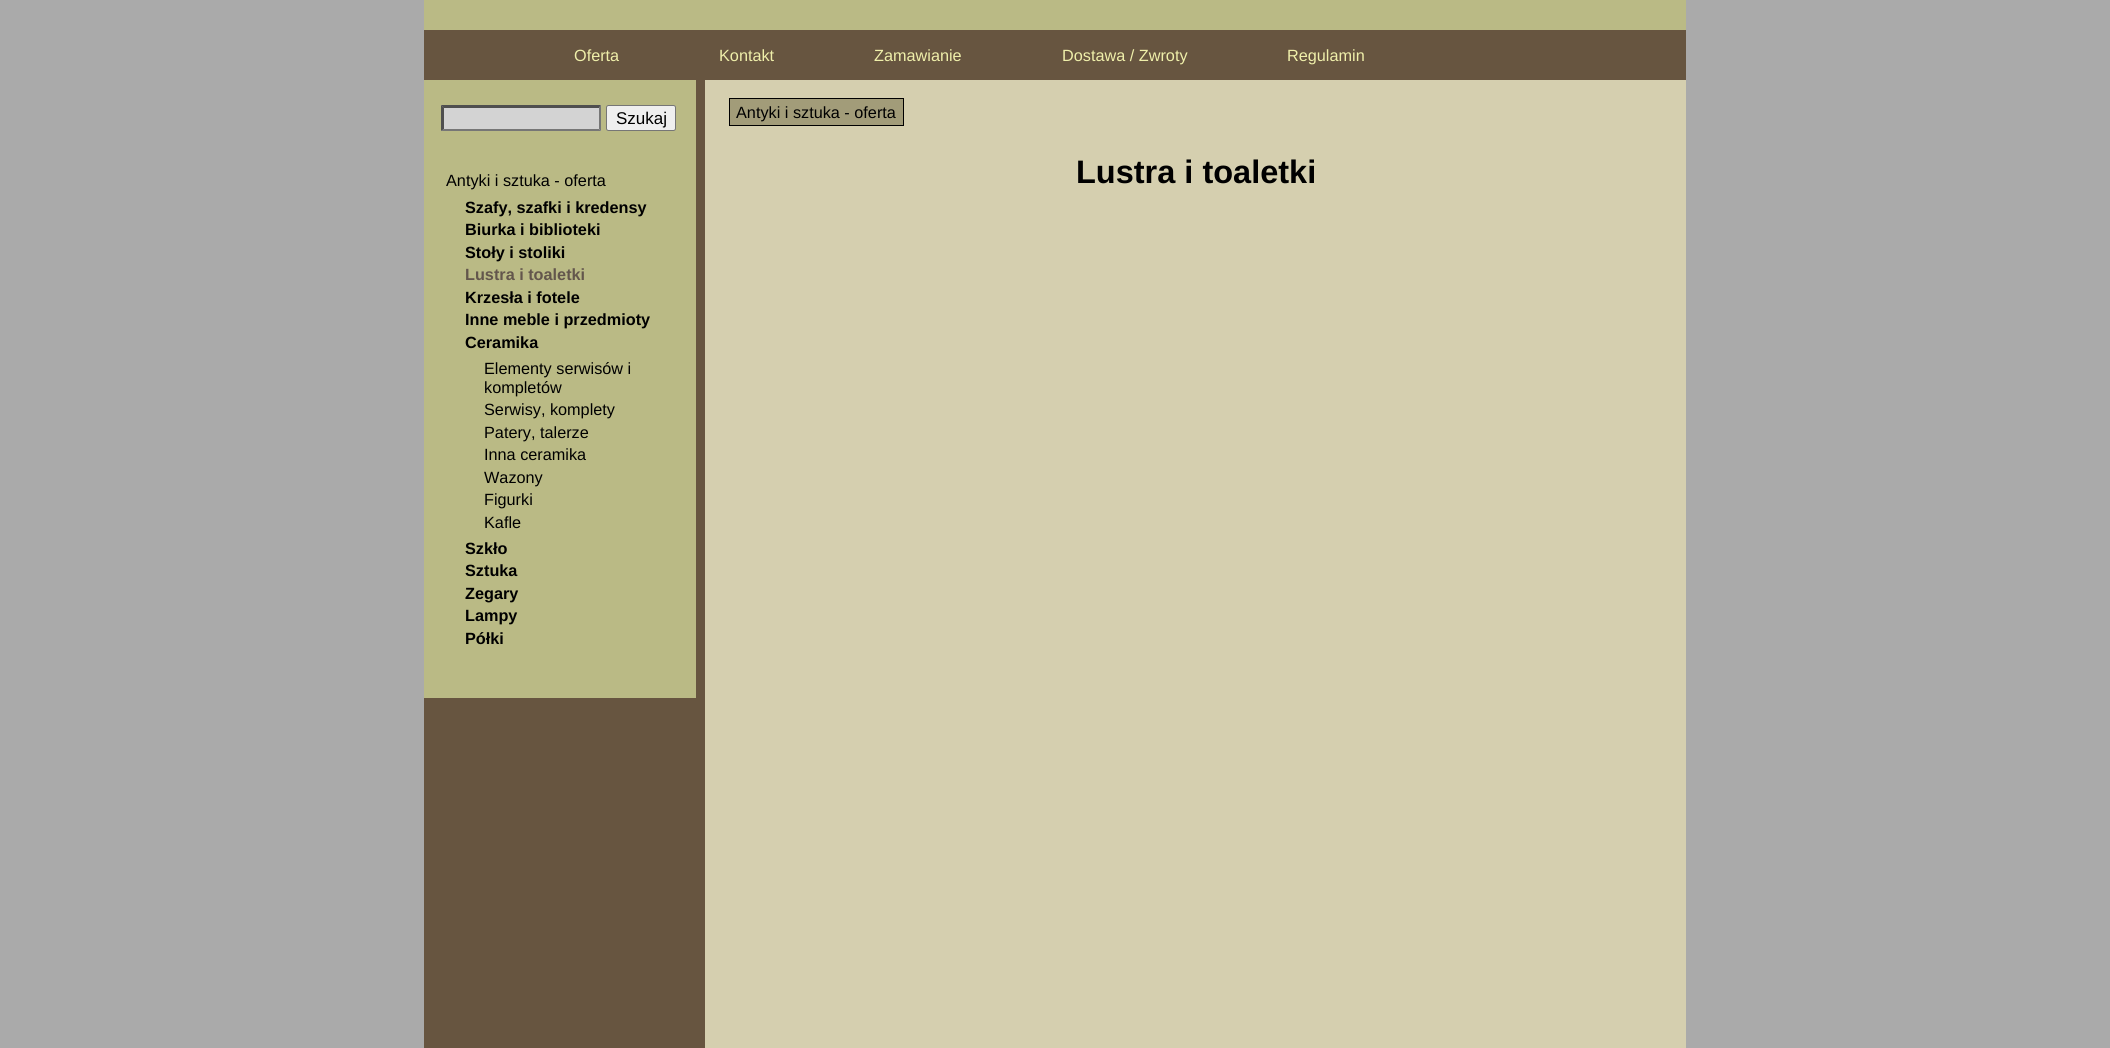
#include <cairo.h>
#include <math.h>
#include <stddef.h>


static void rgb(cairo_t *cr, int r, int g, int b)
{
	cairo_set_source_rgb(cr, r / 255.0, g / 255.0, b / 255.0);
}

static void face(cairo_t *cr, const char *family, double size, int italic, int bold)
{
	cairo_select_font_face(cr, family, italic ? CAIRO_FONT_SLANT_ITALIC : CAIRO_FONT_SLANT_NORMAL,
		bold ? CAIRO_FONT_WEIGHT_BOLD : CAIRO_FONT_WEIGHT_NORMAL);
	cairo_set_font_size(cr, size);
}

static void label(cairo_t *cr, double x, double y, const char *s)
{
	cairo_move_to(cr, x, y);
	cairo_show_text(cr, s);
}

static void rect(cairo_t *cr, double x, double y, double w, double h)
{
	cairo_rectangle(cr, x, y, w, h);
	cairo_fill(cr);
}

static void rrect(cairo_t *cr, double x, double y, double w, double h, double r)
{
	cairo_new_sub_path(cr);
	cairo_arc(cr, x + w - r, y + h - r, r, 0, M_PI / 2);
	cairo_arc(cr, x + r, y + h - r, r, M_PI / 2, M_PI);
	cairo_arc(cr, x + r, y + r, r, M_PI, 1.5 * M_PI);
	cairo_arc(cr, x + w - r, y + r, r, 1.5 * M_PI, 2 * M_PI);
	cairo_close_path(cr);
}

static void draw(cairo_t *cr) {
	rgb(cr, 170, 170, 170);
	cairo_paint(cr);
	rgb(cr, 103, 85, 64);
	rect(cr, 424, 30, 1262, 1018);
	rgb(cr, 186, 186, 133);
	rect(cr, 424, 0, 1262, 30);
	face(cr, "Liberation Sans", 16.25, 0, 0);
	rgb(cr, 239, 239, 170);
	label(cr, 574, 61, "Oferta");
	label(cr, 719, 61, "Kontakt");
	label(cr, 874, 61, "Zamawianie");
	label(cr, 1062, 61, "Dostawa / Zwroty");
	label(cr, 1287, 61, "Regulamin");
	rgb(cr, 186, 186, 133);
	rect(cr, 424, 80, 272, 618);
	rgb(cr, 211, 211, 211);
	rect(cr, 441, 105, 160, 26);
	rgb(cr, 79, 79, 79);
	cairo_new_path(cr);
	cairo_move_to(cr, 441, 105);
	cairo_line_to(cr, 601, 105);
	cairo_line_to(cr, 599, 108);
	cairo_line_to(cr, 444, 108);
	cairo_close_path(cr);
	cairo_fill(cr);
	rgb(cr, 118, 118, 118);
	cairo_new_path(cr);
	cairo_move_to(cr, 601, 105);
	cairo_line_to(cr, 601, 131);
	cairo_line_to(cr, 599, 129);
	cairo_line_to(cr, 599, 107.5);
	cairo_close_path(cr);
	cairo_fill(cr);
	cairo_new_path(cr);
	cairo_move_to(cr, 601, 131);
	cairo_line_to(cr, 441, 131);
	cairo_line_to(cr, 444, 129);
	cairo_line_to(cr, 599, 129);
	cairo_close_path(cr);
	cairo_fill(cr);
	rgb(cr, 79, 79, 79);
	cairo_new_path(cr);
	cairo_move_to(cr, 441, 131);
	cairo_line_to(cr, 441, 105);
	cairo_line_to(cr, 444, 107.5);
	cairo_line_to(cr, 444, 129);
	cairo_close_path(cr);
	cairo_fill(cr);
	rgb(cr, 239, 239, 239);
	rrect(cr, 606.5, 105.5, 69, 25, 2);
	cairo_fill_preserve(cr);
	rgb(cr, 118, 118, 118);
	cairo_set_line_width(cr, 1);
	cairo_stroke(cr);
	face(cr, "Liberation Sans", 17, 0, 0);
	rgb(cr, 0, 0, 0);
	label(cr, 616, 124, "Szukaj");
	face(cr, "Liberation Sans", 16.25, 0, 0);
	label(cr, 446, 186, "Antyki i sztuka - oferta");
	face(cr, "Liberation Sans", 16.25, 0, 1);
	label(cr, 465, 213, "Szafy, szafki i kredensy");
	label(cr, 465, 235, "Biurka i biblioteki");
	label(cr, 465, 258, "Stoły i stoliki");
	rgb(cr, 99, 86, 76);
	label(cr, 465, 280, "Lustra i toaletki");
	rgb(cr, 0, 0, 0);
	label(cr, 465, 303, "Krzesła i fotele");
	label(cr, 465, 325, "Inne meble i przedmioty");
	label(cr, 465, 348, "Ceramika");
	face(cr, "Liberation Sans", 16.25, 0, 0);
	label(cr, 484, 374, "Elementy serwisów i");
	label(cr, 484, 393, "kompletów");
	label(cr, 484, 415, "Serwisy, komplety");
	label(cr, 484, 438, "Patery, talerze");
	label(cr, 484, 460, "Inna ceramika");
	label(cr, 484, 483, "Wazony");
	label(cr, 484, 505, "Figurki");
	label(cr, 484, 528, "Kafle");
	face(cr, "Liberation Sans", 16.25, 0, 1);
	label(cr, 465, 554, "Szkło");
	label(cr, 465, 576, "Sztuka");
	label(cr, 465, 599, "Zegary");
	label(cr, 465, 621, "Lampy");
	label(cr, 465, 644, "Półki");
	rgb(cr, 213, 207, 175);
	rect(cr, 705, 80, 981, 968);
	rgb(cr, 162, 156, 121);
	cairo_rectangle(cr, 729.5, 98.5, 174, 27);
	cairo_fill_preserve(cr);
	rgb(cr, 0, 0, 0);
	cairo_stroke(cr);
	face(cr, "Liberation Sans", 16.25, 0, 0);
	label(cr, 736, 118, "Antyki i sztuka - oferta");
	face(cr, "Liberation Sans", 32.5, 0, 1);
	label(cr, 1076, 183, "Lustra i toaletki");
}

int main(void) {
	cairo_surface_t *surface = cairo_image_surface_create(CAIRO_FORMAT_RGB24, 2110, 1048);
	cairo_t *cr = cairo_create(surface);
	cairo_font_options_t *options = cairo_font_options_create();
	cairo_font_options_set_hint_metrics(options, CAIRO_HINT_METRICS_OFF);
	cairo_font_options_set_hint_style(options, CAIRO_HINT_STYLE_NONE);
	cairo_set_font_options(cr, options);
	cairo_set_miter_limit(cr, 4);
	draw(cr);
	cairo_surface_write_to_png(surface, "render.png");
	cairo_font_options_destroy(options);
	cairo_destroy(cr);
	cairo_surface_destroy(surface);
	return 0;
}
